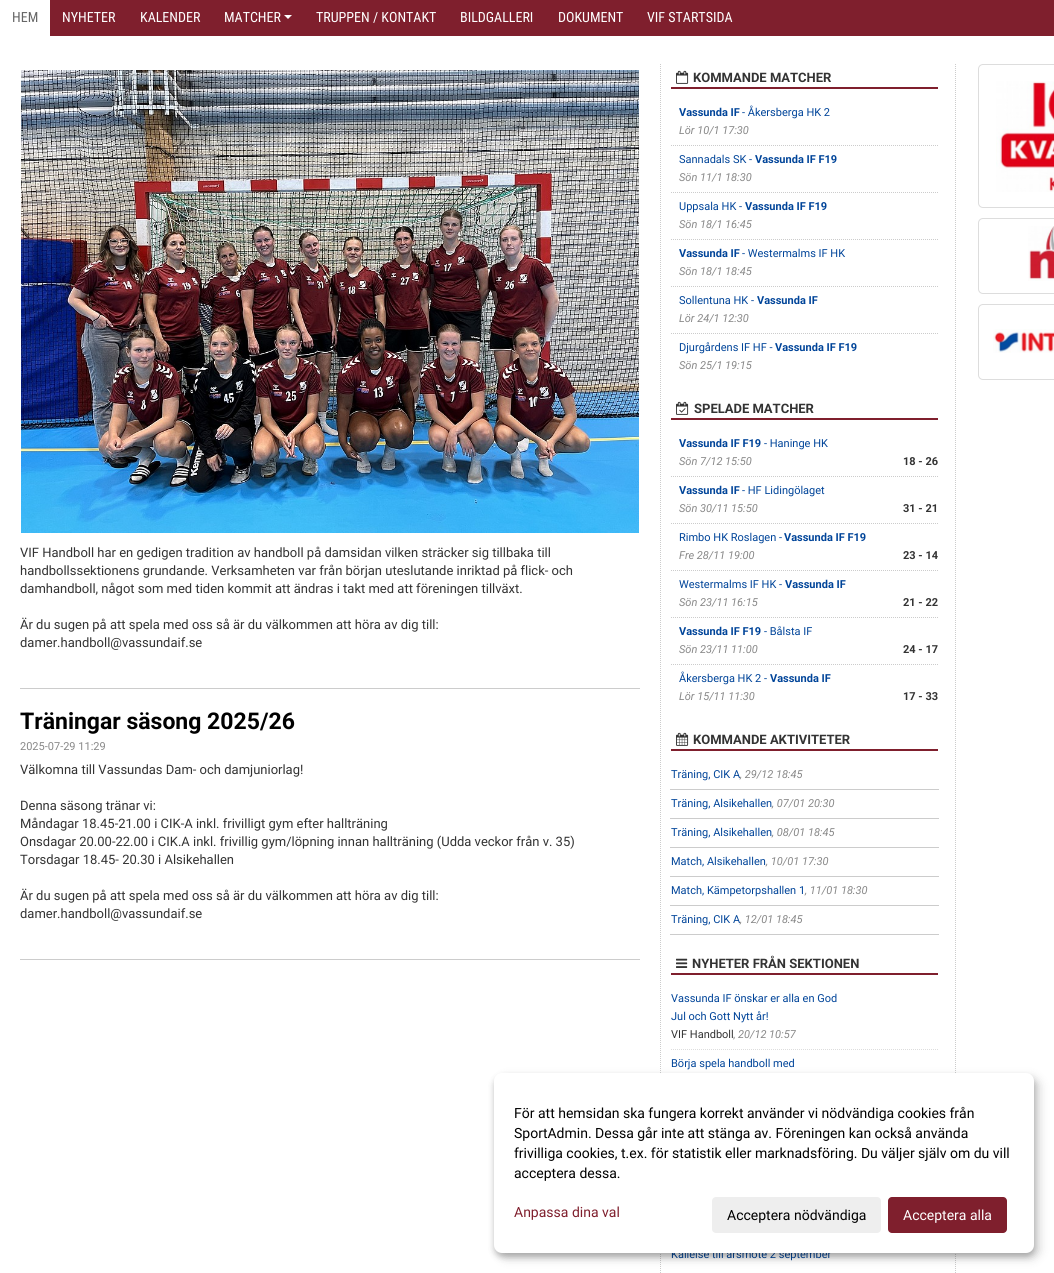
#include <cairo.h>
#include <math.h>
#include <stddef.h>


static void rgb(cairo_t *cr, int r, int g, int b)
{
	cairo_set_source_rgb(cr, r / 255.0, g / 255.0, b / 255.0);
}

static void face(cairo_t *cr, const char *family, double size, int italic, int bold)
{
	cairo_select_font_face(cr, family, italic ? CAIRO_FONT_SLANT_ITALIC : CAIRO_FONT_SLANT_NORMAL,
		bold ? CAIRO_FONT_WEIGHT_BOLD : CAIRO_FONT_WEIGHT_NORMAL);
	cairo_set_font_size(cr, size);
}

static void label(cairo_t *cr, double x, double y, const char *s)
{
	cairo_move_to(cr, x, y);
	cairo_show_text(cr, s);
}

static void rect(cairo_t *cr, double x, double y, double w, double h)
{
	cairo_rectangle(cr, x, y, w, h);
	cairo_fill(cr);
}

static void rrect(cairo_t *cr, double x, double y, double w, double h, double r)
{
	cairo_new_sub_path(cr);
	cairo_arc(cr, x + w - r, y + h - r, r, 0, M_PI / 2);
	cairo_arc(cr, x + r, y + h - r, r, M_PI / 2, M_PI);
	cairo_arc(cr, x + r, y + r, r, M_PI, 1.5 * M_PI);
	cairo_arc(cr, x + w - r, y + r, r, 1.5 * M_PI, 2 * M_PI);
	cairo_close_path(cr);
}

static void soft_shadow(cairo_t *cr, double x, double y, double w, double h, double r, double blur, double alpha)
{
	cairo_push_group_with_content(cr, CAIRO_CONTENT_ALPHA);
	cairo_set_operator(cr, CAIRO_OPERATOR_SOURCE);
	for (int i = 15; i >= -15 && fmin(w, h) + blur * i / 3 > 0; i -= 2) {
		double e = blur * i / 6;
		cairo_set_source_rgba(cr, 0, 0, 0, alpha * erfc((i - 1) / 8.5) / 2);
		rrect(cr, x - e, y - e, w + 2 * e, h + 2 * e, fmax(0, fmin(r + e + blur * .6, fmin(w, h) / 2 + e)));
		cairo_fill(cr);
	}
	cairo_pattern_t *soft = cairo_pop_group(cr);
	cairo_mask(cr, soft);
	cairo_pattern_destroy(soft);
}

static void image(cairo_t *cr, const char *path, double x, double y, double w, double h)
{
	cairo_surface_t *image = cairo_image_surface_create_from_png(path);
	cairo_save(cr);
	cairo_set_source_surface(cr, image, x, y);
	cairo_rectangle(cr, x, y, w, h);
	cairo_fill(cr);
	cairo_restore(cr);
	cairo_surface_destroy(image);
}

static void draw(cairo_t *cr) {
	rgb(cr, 255, 255, 255);
	cairo_paint(cr);
	rgb(cr, 127, 31, 45);
	rect(cr, 50, 0, 1004, 36);
	face(cr, "Roboto Condensed", 14, 0, 0);
	rgb(cr, 102, 102, 102);
	label(cr, 12, 22, "HEM");
	rgb(cr, 255, 255, 255);
	label(cr, 62, 22, "NYHETER");
	label(cr, 140, 22, "KALENDER");
	label(cr, 224, 22, "MATCHER");
	cairo_new_path(cr);
	cairo_move_to(cr, 284, 15);
	cairo_line_to(cr, 292, 15);
	cairo_line_to(cr, 288, 19);
	cairo_close_path(cr);
	cairo_fill(cr);
	label(cr, 316, 22, "TRUPPEN / KONTAKT");
	label(cr, 460, 22, "BILDGALLERI");
	label(cr, 558, 22, "DOKUMENT");
	label(cr, 647, 22, "VIF STARTSIDA");
	image(cr, "image0.png", 21, 70, 618, 463);
	face(cr, "Roboto", 13, 0, 0);
	rgb(cr, 51, 51, 51);
	label(cr, 20, 557, "VIF Handboll har en gedigen tradition av handboll på damsidan vilken sträcker sig tillbaka till");
	label(cr, 20, 575, "handbollssektionens grundande. Verksamheten var från början uteslutande inriktad på flick- och");
	label(cr, 20, 593, "damhandboll, något som med tiden kommit att ändras i takt med att föreningen tillväxt.");
	label(cr, 20, 629, "Är du sugen på att spela med oss så är du välkommen att höra av dig till:");
	label(cr, 20, 647, "damer.handboll@vassundaif.se");
	rgb(cr, 204, 204, 204);
	rect(cr, 20, 688, 620, 1);
	face(cr, "Roboto", 23, 0, 1);
	rgb(cr, 0, 0, 0);
	label(cr, 20, 729, "Träningar säsong 2025/26");
	face(cr, "Roboto", 11, 0, 0);
	rgb(cr, 136, 136, 136);
	label(cr, 20, 750, "2025-07-29 11:29");
	face(cr, "Roboto", 13, 0, 0);
	rgb(cr, 51, 51, 51);
	label(cr, 20, 774, "Välkomna till Vassundas Dam- och damjuniorlag!");
	label(cr, 20, 810, "Denna säsong tränar vi:");
	label(cr, 20, 828, "Måndagar 18.45-21.00 i CIK-A inkl. frivilligt gym efter hallträning");
	label(cr, 20, 846, "Onsdagar 20.00-22.00 i CIK.A inkl. frivillig gym/löpning innan hallträning (Udda veckor från v. 35)");
	label(cr, 20, 864, "Torsdagar 18.45- 20.30 i Alsikehallen");
	label(cr, 20, 900, "Är du sugen på att spela med oss så är du välkommen att höra av dig till:");
	label(cr, 20, 918, "damer.handboll@vassundaif.se");
	rgb(cr, 204, 204, 204);
	rect(cr, 20, 959, 620, 1);
	cairo_new_path(cr);
	cairo_move_to(cr, 660.5, 64);
	cairo_line_to(cr, 660.5, 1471);
	cairo_set_line_width(cr, 1);
	cairo_set_dash(cr, (double[]){1, 1}, 2, 0);
	cairo_stroke(cr);
	rgb(cr, 127, 31, 45);
	rect(cr, 671, 87, 267, 2);
	image(cr, "image1.png", 676, 70, 13, 14);
	face(cr, "Roboto", 13, 0, 1);
	rgb(cr, 51, 51, 51);
	label(cr, 693, 82, "KOMMANDE MATCHER");
	face(cr, "Roboto", 11, 0, 1);
	rgb(cr, 0, 68, 153);
	label(cr, 679, 116, "Vassunda IF");
	face(cr, "Roboto", 11, 0, 0);
	label(cr, 742, 116, "- Åkersberga HK 2");
	cairo_new_path(cr);
	cairo_move_to(cr, 671, 145.5);
	cairo_line_to(cr, 938, 145.5);
	rgb(cr, 204, 204, 204);
	cairo_stroke(cr);
	face(cr, "Roboto", 11, 1, 0);
	rgb(cr, 136, 136, 136);
	label(cr, 679, 134, "Lör 10/1 17:30");
	face(cr, "Roboto", 11, 0, 0);
	rgb(cr, 0, 68, 153);
	label(cr, 679, 163, "Sannadals SK -");
	face(cr, "Roboto", 11, 0, 1);
	label(cr, 755, 163, "Vassunda IF F19");
	cairo_new_path(cr);
	cairo_move_to(cr, 671, 192.5);
	cairo_line_to(cr, 938, 192.5);
	rgb(cr, 204, 204, 204);
	cairo_stroke(cr);
	face(cr, "Roboto", 11, 1, 0);
	rgb(cr, 136, 136, 136);
	label(cr, 679, 181, "Sön 11/1 18:30");
	face(cr, "Roboto", 11, 0, 0);
	rgb(cr, 0, 68, 153);
	label(cr, 679, 210, "Uppsala HK -");
	face(cr, "Roboto", 11, 0, 1);
	label(cr, 745, 210, "Vassunda IF F19");
	cairo_new_path(cr);
	cairo_move_to(cr, 671, 239.5);
	cairo_line_to(cr, 938, 239.5);
	rgb(cr, 204, 204, 204);
	cairo_stroke(cr);
	face(cr, "Roboto", 11, 1, 0);
	rgb(cr, 136, 136, 136);
	label(cr, 679, 228, "Sön 18/1 16:45");
	face(cr, "Roboto", 11, 0, 1);
	rgb(cr, 0, 68, 153);
	label(cr, 679, 257, "Vassunda IF");
	face(cr, "Roboto", 11, 0, 0);
	label(cr, 742, 257, "- Westermalms IF HK");
	cairo_new_path(cr);
	cairo_move_to(cr, 671, 286.5);
	cairo_line_to(cr, 938, 286.5);
	rgb(cr, 204, 204, 204);
	cairo_stroke(cr);
	face(cr, "Roboto", 11, 1, 0);
	rgb(cr, 136, 136, 136);
	label(cr, 679, 275, "Sön 18/1 18:45");
	face(cr, "Roboto", 11, 0, 0);
	rgb(cr, 0, 68, 153);
	label(cr, 679, 304, "Sollentuna HK -");
	face(cr, "Roboto", 11, 0, 1);
	label(cr, 757, 304, "Vassunda IF");
	cairo_new_path(cr);
	cairo_move_to(cr, 671, 333.5);
	cairo_line_to(cr, 938, 333.5);
	rgb(cr, 204, 204, 204);
	cairo_stroke(cr);
	face(cr, "Roboto", 11, 1, 0);
	rgb(cr, 136, 136, 136);
	label(cr, 679, 322, "Lör 24/1 12:30");
	face(cr, "Roboto", 11, 0, 0);
	rgb(cr, 0, 68, 153);
	label(cr, 679, 351, "Djurgårdens IF HF -");
	face(cr, "Roboto", 11, 0, 1);
	label(cr, 775, 351, "Vassunda IF F19");
	face(cr, "Roboto", 11, 1, 0);
	rgb(cr, 136, 136, 136);
	label(cr, 679, 369, "Sön 25/1 19:15");
	rgb(cr, 127, 31, 45);
	rect(cr, 671, 418, 267, 2);
	image(cr, "image2.png", 676, 401, 13, 14);
	face(cr, "Roboto", 13, 0, 1);
	rgb(cr, 51, 51, 51);
	label(cr, 694, 413, "SPELADE MATCHER");
	face(cr, "Roboto", 11, 0, 1);
	rgb(cr, 0, 68, 153);
	label(cr, 679, 447, "Vassunda IF F19");
	face(cr, "Roboto", 11, 0, 0);
	label(cr, 764, 447, "- Haninge HK");
	cairo_new_path(cr);
	cairo_move_to(cr, 671, 476.5);
	cairo_line_to(cr, 938, 476.5);
	rgb(cr, 204, 204, 204);
	cairo_stroke(cr);
	face(cr, "Roboto", 11, 1, 0);
	rgb(cr, 136, 136, 136);
	label(cr, 679, 465, "Sön 7/12 15:50");
	face(cr, "Roboto", 11, 0, 1);
	rgb(cr, 51, 51, 51);
	label(cr, 903, 465, "18 - 26");
	rgb(cr, 0, 68, 153);
	label(cr, 679, 494, "Vassunda IF");
	face(cr, "Roboto", 11, 0, 0);
	label(cr, 742, 494, "- HF Lidingölaget");
	cairo_new_path(cr);
	cairo_move_to(cr, 671, 523.5);
	cairo_line_to(cr, 938, 523.5);
	rgb(cr, 204, 204, 204);
	cairo_stroke(cr);
	face(cr, "Roboto", 11, 1, 0);
	rgb(cr, 136, 136, 136);
	label(cr, 679, 512, "Sön 30/11 15:50");
	face(cr, "Roboto", 11, 0, 1);
	rgb(cr, 51, 51, 51);
	label(cr, 903, 512, "31 - 21");
	face(cr, "Roboto", 11, 0, 0);
	rgb(cr, 0, 68, 153);
	label(cr, 679, 541, "Rimbo HK Roslagen -");
	face(cr, "Roboto", 11, 0, 1);
	label(cr, 784, 541, "Vassunda IF F19");
	cairo_new_path(cr);
	cairo_move_to(cr, 671, 570.5);
	cairo_line_to(cr, 938, 570.5);
	rgb(cr, 204, 204, 204);
	cairo_stroke(cr);
	face(cr, "Roboto", 11, 1, 0);
	rgb(cr, 136, 136, 136);
	label(cr, 679, 559, "Fre 28/11 19:00");
	face(cr, "Roboto", 11, 0, 1);
	rgb(cr, 51, 51, 51);
	label(cr, 903, 559, "23 - 14");
	face(cr, "Roboto", 11, 0, 0);
	rgb(cr, 0, 68, 153);
	label(cr, 679, 588, "Westermalms IF HK -");
	face(cr, "Roboto", 11, 0, 1);
	label(cr, 785, 588, "Vassunda IF");
	cairo_new_path(cr);
	cairo_move_to(cr, 671, 617.5);
	cairo_line_to(cr, 938, 617.5);
	rgb(cr, 204, 204, 204);
	cairo_stroke(cr);
	face(cr, "Roboto", 11, 1, 0);
	rgb(cr, 136, 136, 136);
	label(cr, 679, 606, "Sön 23/11 16:15");
	face(cr, "Roboto", 11, 0, 1);
	rgb(cr, 51, 51, 51);
	label(cr, 903, 606, "21 - 22");
	rgb(cr, 0, 68, 153);
	label(cr, 679, 635, "Vassunda IF F19");
	face(cr, "Roboto", 11, 0, 0);
	label(cr, 764, 635, "- Bålsta IF");
	cairo_new_path(cr);
	cairo_move_to(cr, 671, 664.5);
	cairo_line_to(cr, 938, 664.5);
	rgb(cr, 204, 204, 204);
	cairo_stroke(cr);
	face(cr, "Roboto", 11, 1, 0);
	rgb(cr, 136, 136, 136);
	label(cr, 679, 653, "Sön 23/11 11:00");
	face(cr, "Roboto", 11, 0, 1);
	rgb(cr, 51, 51, 51);
	label(cr, 903, 653, "24 - 17");
	face(cr, "Roboto", 11, 0, 0);
	rgb(cr, 0, 68, 153);
	label(cr, 679, 682, "Åkersberga HK 2 -");
	face(cr, "Roboto", 11, 0, 1);
	label(cr, 770, 682, "Vassunda IF");
	face(cr, "Roboto", 11, 1, 0);
	rgb(cr, 136, 136, 136);
	label(cr, 679, 700, "Lör 15/11 11:30");
	face(cr, "Roboto", 11, 0, 1);
	rgb(cr, 51, 51, 51);
	label(cr, 903, 700, "17 - 33");
	rgb(cr, 127, 31, 45);
	rect(cr, 671, 749, 267, 2);
	image(cr, "image3.png", 676, 732, 13, 14);
	face(cr, "Roboto", 13, 0, 1);
	rgb(cr, 51, 51, 51);
	label(cr, 693, 744, "KOMMANDE AKTIVITETER");
	rgb(cr, 204, 204, 204);
	rect(cr, 670, 789, 269, 1);
	face(cr, "Roboto", 11, 0, 0);
	rgb(cr, 0, 68, 153);
	label(cr, 671, 778, "Träning, CIK A");
	face(cr, "Roboto", 11, 1, 0);
	rgb(cr, 136, 136, 136);
	label(cr, 740, 778, ", 29/12 18:45");
	rgb(cr, 204, 204, 204);
	rect(cr, 670, 818, 269, 1);
	face(cr, "Roboto", 11, 0, 0);
	rgb(cr, 0, 68, 153);
	label(cr, 671, 807, "Träning, Alsikehallen");
	face(cr, "Roboto", 11, 1, 0);
	rgb(cr, 136, 136, 136);
	label(cr, 772, 807, ", 07/01 20:30");
	rgb(cr, 204, 204, 204);
	rect(cr, 670, 847, 269, 1);
	face(cr, "Roboto", 11, 0, 0);
	rgb(cr, 0, 68, 153);
	label(cr, 671, 836, "Träning, Alsikehallen");
	face(cr, "Roboto", 11, 1, 0);
	rgb(cr, 136, 136, 136);
	label(cr, 772, 836, ", 08/01 18:45");
	rgb(cr, 204, 204, 204);
	rect(cr, 670, 876, 269, 1);
	face(cr, "Roboto", 11, 0, 0);
	rgb(cr, 0, 68, 153);
	label(cr, 671, 865, "Match, Alsikehallen");
	face(cr, "Roboto", 11, 1, 0);
	rgb(cr, 136, 136, 136);
	label(cr, 766, 865, ", 10/01 17:30");
	rgb(cr, 204, 204, 204);
	rect(cr, 670, 905, 269, 1);
	face(cr, "Roboto", 11, 0, 0);
	rgb(cr, 0, 68, 153);
	label(cr, 671, 894, "Match, Kämpetorpshallen 1");
	face(cr, "Roboto", 11, 1, 0);
	rgb(cr, 136, 136, 136);
	label(cr, 805, 894, ", 11/01 18:30");
	rgb(cr, 204, 204, 204);
	rect(cr, 670, 934, 269, 1);
	face(cr, "Roboto", 11, 0, 0);
	rgb(cr, 0, 68, 153);
	label(cr, 671, 923, "Träning, CIK A");
	face(cr, "Roboto", 11, 1, 0);
	rgb(cr, 136, 136, 136);
	label(cr, 740, 923, ", 12/01 18:45");
	rgb(cr, 127, 31, 45);
	rect(cr, 671, 973, 267, 2);
	image(cr, "image4.png", 676, 958, 12, 10);
	face(cr, "Roboto", 13, 0, 1);
	rgb(cr, 51, 51, 51);
	label(cr, 692, 968, "NYHETER FRÅN SEKTIONEN");
	face(cr, "Roboto", 11, 0, 0);
	rgb(cr, 0, 68, 153);
	label(cr, 671, 1002, "Vassunda IF önskar er alla en God");
	label(cr, 671, 1020, "Jul och Gott Nytt år!");
	rgb(cr, 51, 51, 51);
	label(cr, 671, 1038, "VIF Handboll");
	rgb(cr, 136, 136, 136);
	label(cr, 733, 1038, ",");
	face(cr, "Roboto", 11, 1, 0);
	label(cr, 738, 1038, "20/12 10:57");
	cairo_new_path(cr);
	cairo_move_to(cr, 671, 1049.5);
	cairo_line_to(cr, 938, 1049.5);
	rgb(cr, 221, 221, 221);
	cairo_stroke(cr);
	face(cr, "Roboto", 11, 0, 0);
	rgb(cr, 0, 68, 153);
	label(cr, 671, 1067, "Börja spela handboll med");
	label(cr, 671, 1258, "Kallelse till årsmöte 2 september");
	cairo_new_path(cr);
	cairo_move_to(cr, 955.5, 64);
	cairo_line_to(cr, 955.5, 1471);
	rgb(cr, 204, 204, 204);
	cairo_stroke(cr);
	rrect(cr, 978.5, 64.5, 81, 143, 4.5);
	rgb(cr, 221, 221, 221);
	cairo_set_dash(cr, NULL, 0, 0);
	cairo_stroke(cr);
	image(cr, "image5.png", 996, 81, 58, 111);
	rrect(cr, 978.5, 218.5, 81, 75, 4.5);
	cairo_stroke(cr);
	image(cr, "image6.png", 1028, 226, 26, 55);
	rrect(cr, 978.5, 304.5, 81, 75, 4.5);
	cairo_stroke(cr);
	image(cr, "image7.png", 993, 329, 61, 24);
	rgb(cr, 0, 0, 0);
	soft_shadow(cr, 499, 1078, 540, 180, 8, 5, 0.19);
	soft_shadow(cr, 494, 1077, 540, 180, 8, 3, 0.2);
	rgb(cr, 255, 255, 255);
	rrect(cr, 494, 1073, 540, 180, 8);
	cairo_fill(cr);
	face(cr, "Roboto", 14, 0, 0);
	rgb(cr, 0, 0, 0);
	label(cr, 514, 1118, "För att hemsidan ska fungera korrekt använder vi nödvändiga cookies från");
	label(cr, 514, 1138, "SportAdmin. Dessa går inte att stänga av. Föreningen kan också använda");
	label(cr, 514, 1158, "frivilliga cookies, t.ex. för statistik eller marknadsföring. Du väljer själv om du vill");
	label(cr, 514, 1178, "acceptera dessa.");
	rgb(cr, 127, 31, 45);
	label(cr, 514, 1217, "Anpassa dina val");
	rgb(cr, 238, 238, 238);
	rrect(cr, 712, 1197, 169, 36, 4);
	cairo_fill(cr);
	rgb(cr, 0, 0, 0);
	label(cr, 727, 1220, "Acceptera nödvändiga");
	rgb(cr, 127, 31, 45);
	rrect(cr, 888, 1197, 119, 36, 4);
	cairo_fill(cr);
	rgb(cr, 255, 255, 255);
	label(cr, 903, 1220, "Acceptera alla");
}

int main(void) {
	cairo_surface_t *surface = cairo_image_surface_create(CAIRO_FORMAT_RGB24, 1054, 1273);
	cairo_t *cr = cairo_create(surface);
	cairo_font_options_t *options = cairo_font_options_create();
	cairo_font_options_set_hint_metrics(options, CAIRO_HINT_METRICS_OFF);
	cairo_font_options_set_hint_style(options, CAIRO_HINT_STYLE_NONE);
	cairo_set_font_options(cr, options);
	cairo_set_miter_limit(cr, 4);
	draw(cr);
	cairo_surface_write_to_png(surface, "render.png");
	cairo_font_options_destroy(options);
	cairo_destroy(cr);
	cairo_surface_destroy(surface);
	return 0;
}
